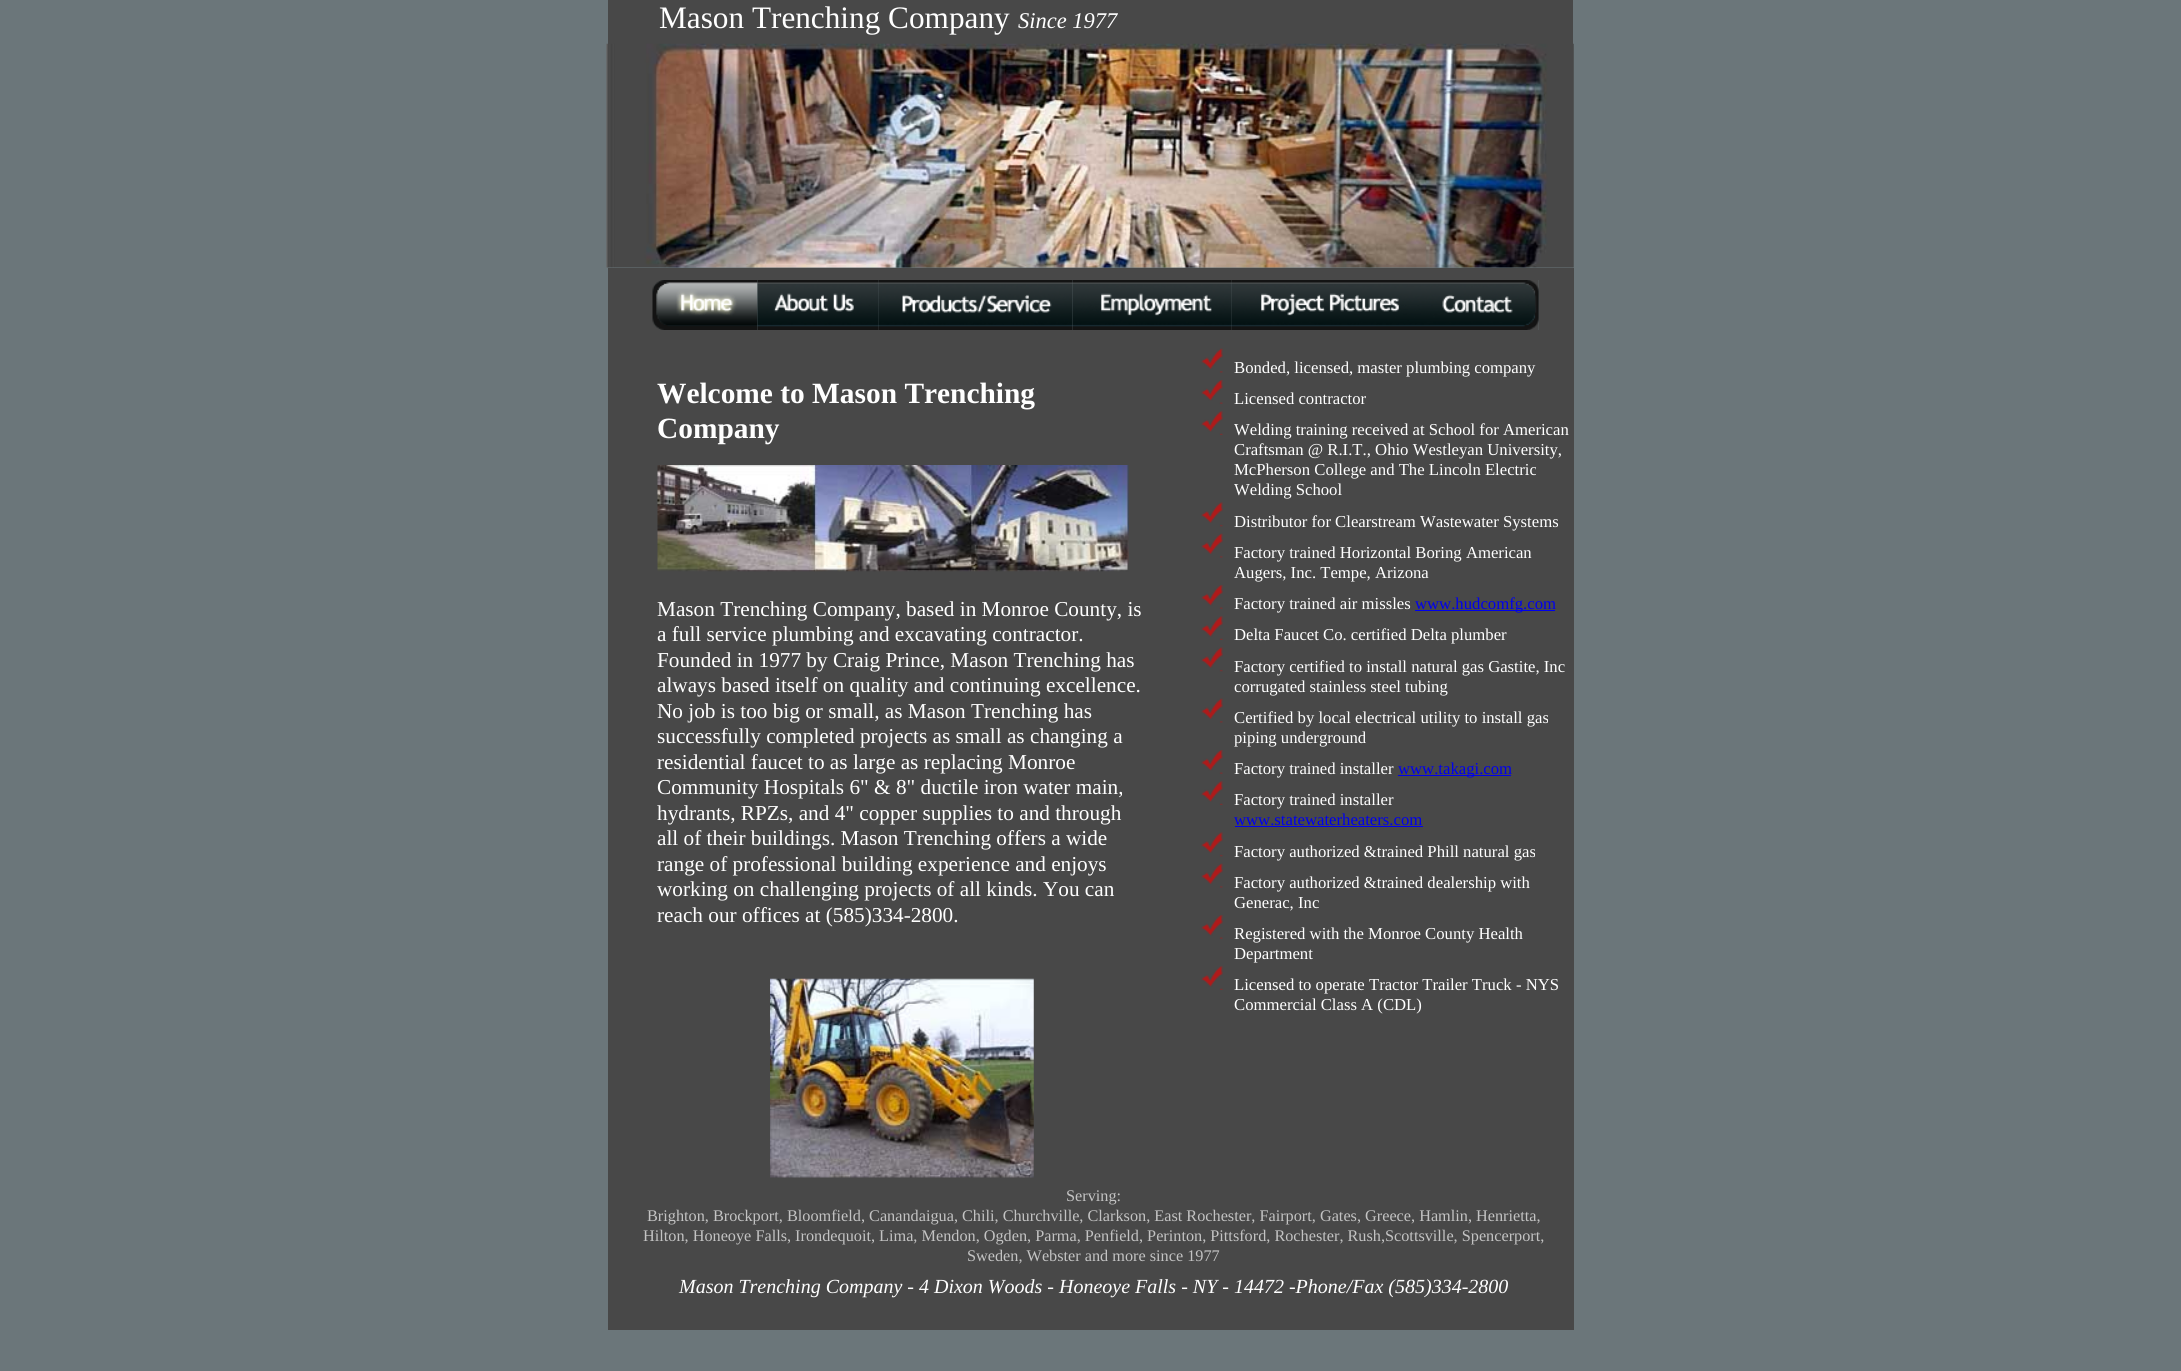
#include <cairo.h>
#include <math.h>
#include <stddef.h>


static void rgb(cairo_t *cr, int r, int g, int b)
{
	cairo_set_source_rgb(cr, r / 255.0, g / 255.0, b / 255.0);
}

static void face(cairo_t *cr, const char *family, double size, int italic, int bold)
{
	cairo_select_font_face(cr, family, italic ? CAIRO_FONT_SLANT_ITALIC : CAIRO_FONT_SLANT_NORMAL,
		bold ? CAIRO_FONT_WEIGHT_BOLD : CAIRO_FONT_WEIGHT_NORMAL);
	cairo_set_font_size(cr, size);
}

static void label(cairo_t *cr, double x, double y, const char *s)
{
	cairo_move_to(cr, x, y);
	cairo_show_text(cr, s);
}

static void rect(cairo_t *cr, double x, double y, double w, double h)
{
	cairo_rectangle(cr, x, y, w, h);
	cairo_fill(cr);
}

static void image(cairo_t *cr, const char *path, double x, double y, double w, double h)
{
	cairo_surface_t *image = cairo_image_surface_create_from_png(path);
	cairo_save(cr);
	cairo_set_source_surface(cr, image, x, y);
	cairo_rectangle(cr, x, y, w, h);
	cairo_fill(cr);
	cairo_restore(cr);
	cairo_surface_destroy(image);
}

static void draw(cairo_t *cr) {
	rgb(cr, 107, 118, 122);
	cairo_paint(cr);
	rgb(cr, 72, 72, 72);
	rect(cr, 608, 0, 965, 44);
	face(cr, "Liberation Serif", 31.25, 0, 0);
	rgb(cr, 255, 255, 255);
	label(cr, 659, 28, "Mason Trenching Company");
	face(cr, "Liberation Serif", 22.5, 1, 0);
	label(cr, 1018, 28, "Since 1977");
	image(cr, "image0.png", 606, 43, 968, 225);
	rgb(cr, 72, 72, 72);
	rect(cr, 608, 268, 931, 12);
	rect(cr, 1539, 268, 35, 1062);
	rect(cr, 608, 280, 45, 50);
	image(cr, "image1.png", 652, 280, 106, 50);
	image(cr, "image2.png", 757, 280, 122, 50);
	image(cr, "image3.png", 878, 280, 195, 50);
	image(cr, "image4.png", 1072, 280, 160, 50);
	image(cr, "image5.png", 1231, 280, 199, 50);
	image(cr, "image6.png", 1430, 280, 109, 50);
	rect(cr, 608, 330, 931, 1000);
	face(cr, "Liberation Serif", 29.4, 0, 1);
	rgb(cr, 255, 255, 255);
	label(cr, 657, 403, "Welcome to Mason Trenching");
	label(cr, 657, 438, "Company");
	image(cr, "image7.png", 657, 465, 472, 107);
	face(cr, "Liberation Serif", 21.25, 0, 0);
	label(cr, 657, 616, "Mason Trenching Company, based in Monroe County, is");
	label(cr, 657, 641, "a full service plumbing and excavating contractor.");
	label(cr, 657, 667, "Founded in 1977 by Craig Prince, Mason Trenching has");
	label(cr, 657, 692, "always based itself on quality and continuing excellence.");
	label(cr, 657, 718, "No job is too big or small, as Mason Trenching has");
	label(cr, 657, 743, "successfully completed projects as small as changing a");
	label(cr, 657, 769, "residential faucet to as large as replacing Monroe");
	label(cr, 657, 794, "Community Hospitals 6\" & 8\" ductile iron water main,");
	label(cr, 657, 820, "hydrants, RPZs, and 4\" copper supplies to and through");
	label(cr, 657, 845, "all of their buildings. Mason Trenching offers a wide");
	label(cr, 657, 871, "range of professional building experience and enjoys");
	label(cr, 657, 896, "working on challenging projects of all kinds. You can");
	label(cr, 657, 922, "reach our offices at (585)334-2800.");
	image(cr, "image8.png", 770, 978, 264, 200);
	image(cr, "image9.png", 1201, 348, 22, 25);
	face(cr, "Liberation Serif", 16.7, 0, 0);
	label(cr, 1234, 373, "Bonded, licensed, master plumbing company");
	image(cr, "image10.png", 1201, 380, 22, 24);
	label(cr, 1234, 404, "Licensed contractor");
	image(cr, "image11.png", 1201, 411, 22, 24);
	label(cr, 1234, 435, "Welding training received at School for American");
	label(cr, 1234, 455, "Craftsman @ R.I.T., Ohio Westleyan University,");
	label(cr, 1234, 475, "McPherson College and The Lincoln Electric");
	label(cr, 1234, 495, "Welding School");
	image(cr, "image12.png", 1201, 502, 22, 25);
	label(cr, 1234, 527, "Distributor for Clearstream Wastewater Systems");
	image(cr, "image9.png", 1201, 533, 22, 25);
	label(cr, 1234, 558, "Factory trained Horizontal Boring American");
	label(cr, 1234, 578, "Augers, Inc. Tempe, Arizona");
	image(cr, "image13.png", 1201, 585, 22, 24);
	label(cr, 1234, 609, "Factory trained air missles");
	rgb(cr, 0, 0, 238);
	rect(cr, 1415, 610, 140, 1);
	label(cr, 1415, 609, "www.hudcomfg.com");
	image(cr, "image11.png", 1201, 616, 22, 24);
	rgb(cr, 255, 255, 255);
	label(cr, 1234, 640, "Delta Faucet Co. certified Delta plumber");
	image(cr, "image12.png", 1201, 647, 22, 25);
	label(cr, 1234, 672, "Factory certified to install natural gas Gastite, Inc");
	label(cr, 1234, 692, "corrugated stainless steel tubing");
	image(cr, "image9.png", 1201, 698, 22, 25);
	label(cr, 1234, 723, "Certified by local electrical utility to install gas");
	label(cr, 1234, 743, "piping underground");
	image(cr, "image10.png", 1201, 750, 22, 24);
	label(cr, 1234, 774, "Factory trained installer");
	rgb(cr, 0, 0, 238);
	rect(cr, 1398, 775, 113, 1);
	label(cr, 1398, 774, "www.takagi.com");
	image(cr, "image14.png", 1201, 781, 22, 24);
	rgb(cr, 255, 255, 255);
	label(cr, 1234, 805, "Factory trained installer");
	rgb(cr, 0, 0, 238);
	label(cr, 1234, 825, "www.statewaterheaters.com");
	rect(cr, 1235, 826, 188, 1);
	image(cr, "image12.png", 1201, 832, 22, 25);
	rgb(cr, 255, 255, 255);
	label(cr, 1234, 857, "Factory authorized &trained Phill natural gas");
	image(cr, "image9.png", 1201, 863, 22, 25);
	label(cr, 1234, 888, "Factory authorized &trained dealership with");
	label(cr, 1234, 908, "Generac, Inc");
	image(cr, "image10.png", 1201, 915, 22, 24);
	label(cr, 1234, 939, "Registered with the Monroe County Health");
	label(cr, 1234, 959, "Department");
	image(cr, "image11.png", 1201, 966, 22, 24);
	label(cr, 1234, 990, "Licensed to operate Tractor Trailer Truck - NYS");
	label(cr, 1234, 1010, "Commercial Class A (CDL)");
	face(cr, "Liberation Serif", 16.25, 0, 0);
	rgb(cr, 195, 195, 195);
	label(cr, 1066, 1201, "Serving:");
	label(cr, 647, 1221, "Brighton, Brockport, Bloomfield, Canandaigua, Chili, Churchville, Clarkson, East Rochester, Fairport, Gates, Greece, Hamlin, Henrietta,");
	label(cr, 643, 1241, "Hilton, Honeoye Falls, Irondequoit, Lima, Mendon, Ogden, Parma, Penfield, Perinton, Pittsford, Rochester, Rush,Scottsville, Spencerport,");
	label(cr, 967, 1261, "Sweden, Webster and more since 1977");
	face(cr, "Liberation Serif", 20, 1, 0);
	rgb(cr, 255, 255, 255);
	label(cr, 679, 1293, "Mason Trenching Company - 4 Dixon Woods - Honeoye Falls - NY - 14472 -Phone/Fax (585)334-2800");
}

int main(void) {
	cairo_surface_t *surface = cairo_image_surface_create(CAIRO_FORMAT_RGB24, 2181, 1371);
	cairo_t *cr = cairo_create(surface);
	cairo_font_options_t *options = cairo_font_options_create();
	cairo_font_options_set_hint_metrics(options, CAIRO_HINT_METRICS_OFF);
	cairo_font_options_set_hint_style(options, CAIRO_HINT_STYLE_NONE);
	cairo_set_font_options(cr, options);
	cairo_set_miter_limit(cr, 4);
	draw(cr);
	cairo_surface_write_to_png(surface, "render.png");
	cairo_font_options_destroy(options);
	cairo_destroy(cr);
	cairo_surface_destroy(surface);
	return 0;
}
